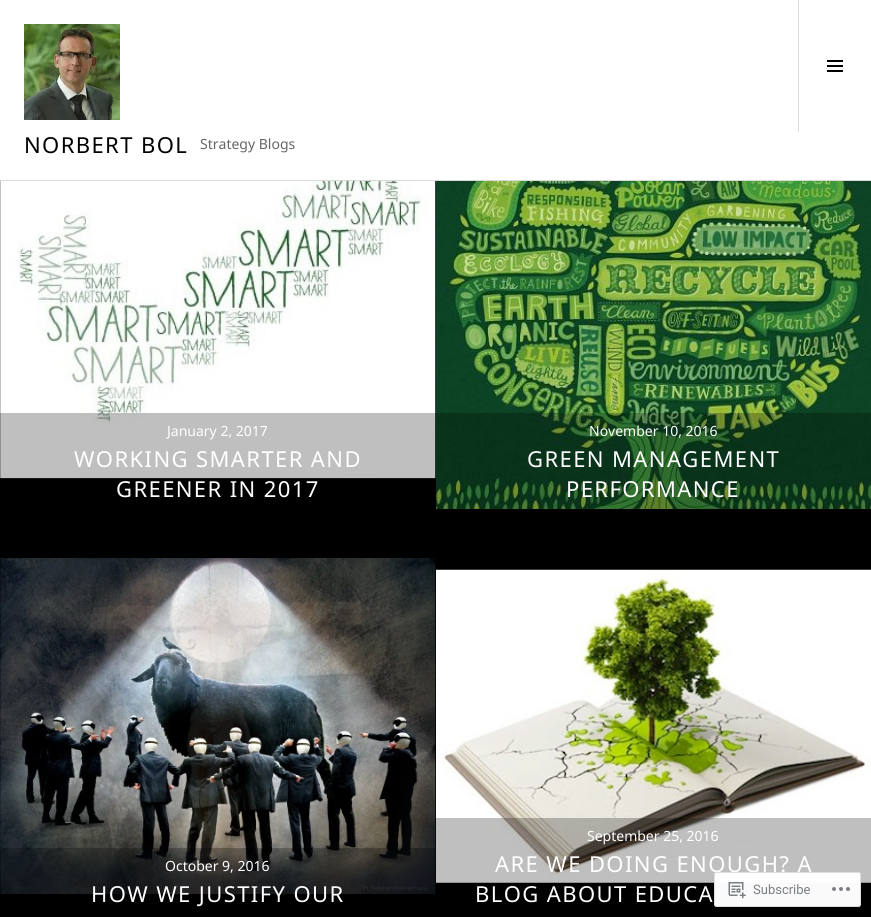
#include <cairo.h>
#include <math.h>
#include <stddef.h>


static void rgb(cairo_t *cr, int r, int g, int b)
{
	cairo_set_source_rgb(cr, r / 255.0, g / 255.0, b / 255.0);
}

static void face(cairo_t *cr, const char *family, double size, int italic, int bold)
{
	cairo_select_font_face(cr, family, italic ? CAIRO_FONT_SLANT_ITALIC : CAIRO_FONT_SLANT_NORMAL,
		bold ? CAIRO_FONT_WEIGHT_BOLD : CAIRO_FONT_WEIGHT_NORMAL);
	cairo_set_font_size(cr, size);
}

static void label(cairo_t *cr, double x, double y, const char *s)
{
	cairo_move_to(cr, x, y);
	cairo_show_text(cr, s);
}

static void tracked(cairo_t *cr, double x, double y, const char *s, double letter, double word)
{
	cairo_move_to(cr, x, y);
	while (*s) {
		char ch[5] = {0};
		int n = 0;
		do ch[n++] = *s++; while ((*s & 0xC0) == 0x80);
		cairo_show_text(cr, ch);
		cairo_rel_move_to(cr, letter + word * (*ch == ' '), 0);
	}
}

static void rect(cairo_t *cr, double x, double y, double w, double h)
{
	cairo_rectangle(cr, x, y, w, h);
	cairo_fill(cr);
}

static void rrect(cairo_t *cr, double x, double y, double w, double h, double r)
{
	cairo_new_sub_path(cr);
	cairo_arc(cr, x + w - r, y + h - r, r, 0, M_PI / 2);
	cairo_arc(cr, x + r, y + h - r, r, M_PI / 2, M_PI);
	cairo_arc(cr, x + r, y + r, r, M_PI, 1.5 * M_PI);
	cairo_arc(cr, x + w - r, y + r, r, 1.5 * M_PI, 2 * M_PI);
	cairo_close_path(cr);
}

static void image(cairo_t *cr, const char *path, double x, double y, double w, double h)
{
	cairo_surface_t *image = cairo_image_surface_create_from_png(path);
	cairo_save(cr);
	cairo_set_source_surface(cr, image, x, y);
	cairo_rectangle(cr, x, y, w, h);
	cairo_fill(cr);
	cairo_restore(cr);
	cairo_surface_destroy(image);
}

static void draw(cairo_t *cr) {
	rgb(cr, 0, 0, 0);
	cairo_paint(cr);
	rgb(cr, 255, 255, 255);
	rect(cr, 0, 0, 871, 180);
	rgb(cr, 217, 217, 217);
	rect(cr, 0, 180, 871, 1);
	rect(cr, 798, 0, 1, 132);
	image(cr, "image0.png", 827, 60, 16, 12);
	image(cr, "image1.png", 24, 24, 96, 96);
	face(cr, "Noto Sans", 22, 0, 0);
	rgb(cr, 0, 0, 0);
	tracked(cr, 24, 153, "NORBERT BOL", 1.4, 0);
	face(cr, "Noto Sans", 14, 0, 0);
	rgb(cr, 102, 102, 102);
	label(cr, 200, 149, "Strategy Blogs");
	image(cr, "image2.png", 0, 181, 436, 298);
	cairo_set_source_rgba(cr, 0, 0, 0, 0.25);
	rect(cr, 0, 413, 436, 66);
	rgb(cr, 255, 255, 255);
	label(cr, 167, 436, "January 2, 2017");
	face(cr, "Noto Sans", 22, 0, 0);
	tracked(cr, 74, 467, "WORKING SMARTER AND", 1.4, 0);
	tracked(cr, 116, 497, "GREENER IN 2017", 1.4, 0);
	image(cr, "image3.png", 436, 181, 435, 328);
	cairo_set_source_rgba(cr, 0, 0, 0, 0.25);
	rect(cr, 436, 413, 435, 96);
	face(cr, "Noto Sans", 14, 0, 0);
	rgb(cr, 255, 255, 255);
	label(cr, 589, 436, "November 10, 2016");
	face(cr, "Noto Sans", 22, 0, 0);
	tracked(cr, 527, 467, "GREEN MANAGEMENT", 1.4, 0);
	tracked(cr, 566, 497, "PERFORMANCE", 1.4, 0);
	image(cr, "image4.png", 0, 558, 436, 336);
	cairo_set_source_rgba(cr, 0, 0, 0, 0.25);
	rect(cr, 0, 848, 435, 46);
	face(cr, "Noto Sans", 14, 0, 0);
	rgb(cr, 255, 255, 255);
	label(cr, 165, 871, "October 9, 2016");
	face(cr, "Noto Sans", 22, 0, 0);
	tracked(cr, 91, 902, "HOW WE JUSTIFY OUR", 1.4, 0);
	image(cr, "image5.png", 436, 569, 435, 314);
	cairo_set_source_rgba(cr, 0, 0, 0, 0.25);
	rect(cr, 436, 818, 435, 65);
	face(cr, "Noto Sans", 14, 0, 0);
	rgb(cr, 255, 255, 255);
	label(cr, 587, 841, "September 25, 2016");
	face(cr, "Noto Sans", 22, 0, 0);
	tracked(cr, 495, 872, "ARE WE DOING ENOUGH? A", 1.4, 0);
	tracked(cr, 475, 902, "BLOG ABOUT EDUCA", 1.4, 0);
	cairo_set_source_rgba(cr, 1, 1, 1, 0.98);
	rrect(cr, 714, 872, 147, 35, 3);
	cairo_fill(cr);
	rrect(cr, 714.5, 872.5, 146, 34, 2.5);
	cairo_set_source_rgba(cr, 0.863, 0.863, 0.871, 0.98);
	cairo_set_line_width(cr, 1);
	cairo_stroke(cr);
	image(cr, "image6.png", 728, 882, 18, 17);
	face(cr, "Roboto", 13, 0, 0);
	rgb(cr, 123, 127, 132);
	label(cr, 753, 894, "Subscribe");
	image(cr, "image7.png", 832, 887, 18, 4);
}

int main(void) {
	cairo_surface_t *surface = cairo_image_surface_create(CAIRO_FORMAT_RGB24, 871, 917);
	cairo_t *cr = cairo_create(surface);
	cairo_font_options_t *options = cairo_font_options_create();
	cairo_font_options_set_hint_metrics(options, CAIRO_HINT_METRICS_OFF);
	cairo_font_options_set_hint_style(options, CAIRO_HINT_STYLE_NONE);
	cairo_set_font_options(cr, options);
	cairo_set_miter_limit(cr, 4);
	draw(cr);
	cairo_surface_write_to_png(surface, "render.png");
	cairo_font_options_destroy(options);
	cairo_destroy(cr);
	cairo_surface_destroy(surface);
	return 0;
}
